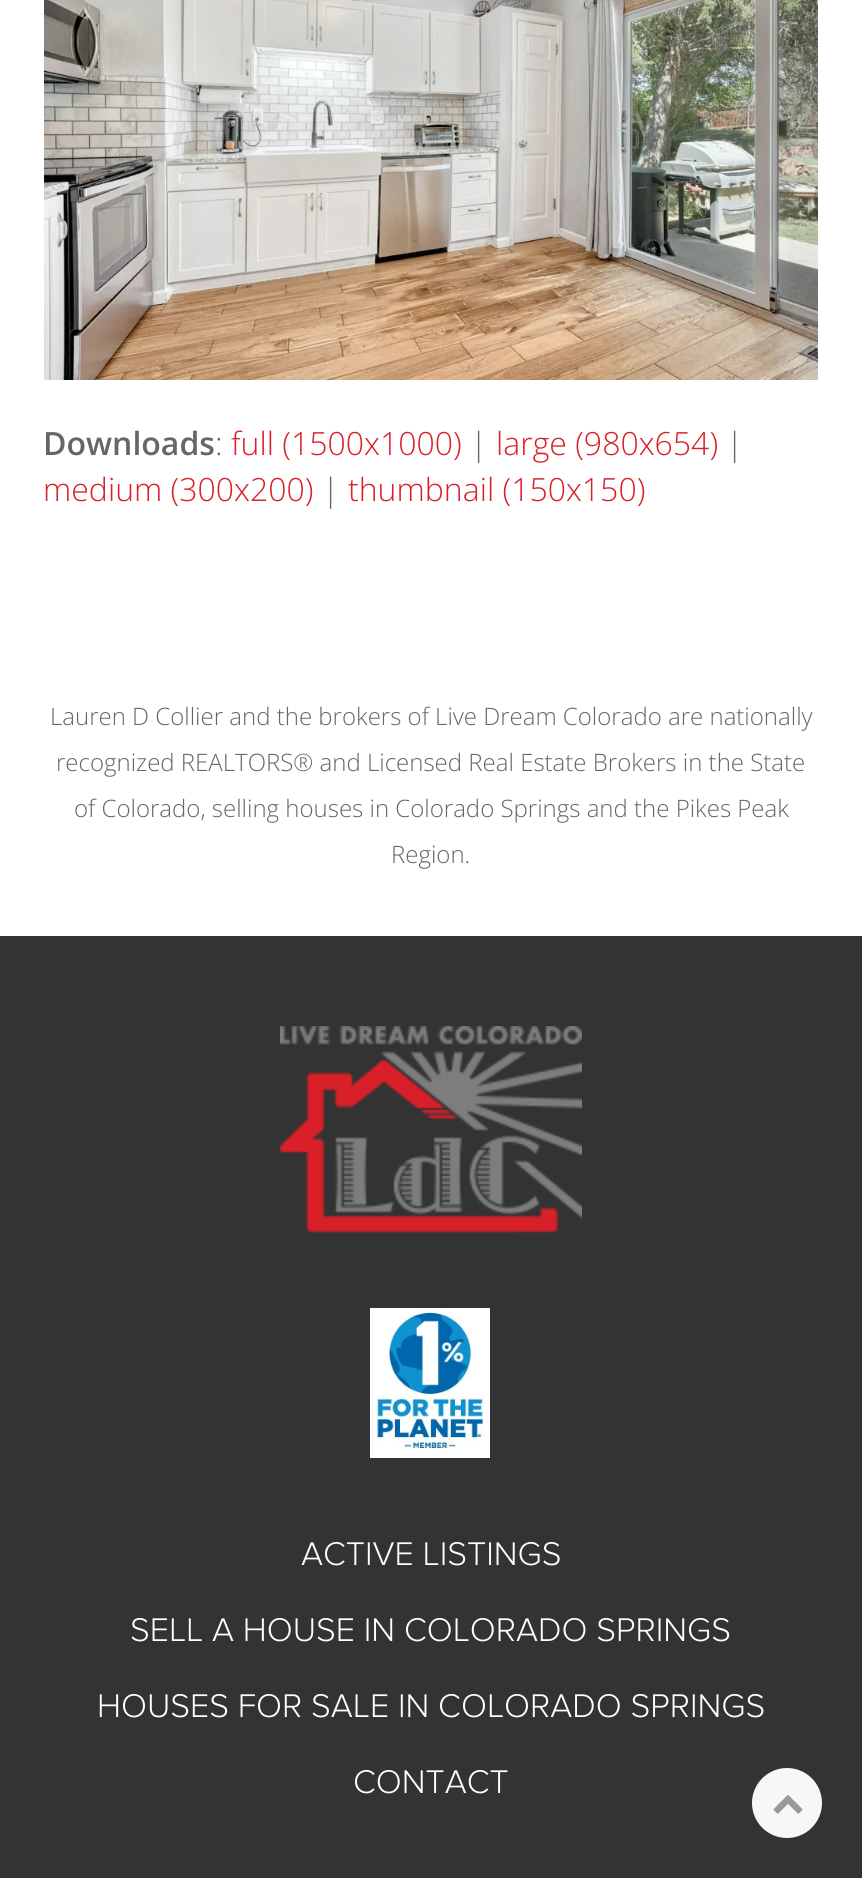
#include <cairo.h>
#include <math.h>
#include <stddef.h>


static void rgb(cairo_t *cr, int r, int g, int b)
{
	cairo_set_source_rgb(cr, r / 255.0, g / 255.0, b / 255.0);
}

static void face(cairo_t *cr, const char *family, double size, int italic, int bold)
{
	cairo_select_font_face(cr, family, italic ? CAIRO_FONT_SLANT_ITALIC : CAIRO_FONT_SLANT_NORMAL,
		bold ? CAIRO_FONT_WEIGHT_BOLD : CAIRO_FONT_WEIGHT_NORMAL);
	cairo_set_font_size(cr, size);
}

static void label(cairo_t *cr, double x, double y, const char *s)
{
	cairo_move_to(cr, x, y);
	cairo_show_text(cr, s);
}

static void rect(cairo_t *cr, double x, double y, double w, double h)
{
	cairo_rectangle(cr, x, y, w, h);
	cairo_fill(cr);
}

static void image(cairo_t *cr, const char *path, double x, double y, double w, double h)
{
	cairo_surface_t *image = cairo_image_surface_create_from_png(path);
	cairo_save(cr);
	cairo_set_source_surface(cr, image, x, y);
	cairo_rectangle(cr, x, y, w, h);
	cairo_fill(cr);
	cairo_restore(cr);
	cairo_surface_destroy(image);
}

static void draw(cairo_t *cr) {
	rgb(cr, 255, 255, 255);
	cairo_paint(cr);
	image(cr, "image0.png", 44, 0, 774, 380);
	face(cr, "Open Sans SemiBold", 32, 0, 0);
	rgb(cr, 102, 102, 102);
	label(cr, 43, 455, "Downloads");
	face(cr, "Open Sans Light", 32, 0, 0);
	label(cr, 215, 455, ":");
	rgb(cr, 218, 31, 39);
	label(cr, 231, 455, "full (1500x1000)");
	rgb(cr, 102, 102, 102);
	label(cr, 470, 455, "|");
	rgb(cr, 218, 31, 39);
	label(cr, 496, 455, "large (980x654)");
	rgb(cr, 102, 102, 102);
	label(cr, 726, 455, "|");
	rgb(cr, 218, 31, 39);
	label(cr, 43, 501, "medium (300x200)");
	rgb(cr, 102, 102, 102);
	label(cr, 322, 501, "|");
	rgb(cr, 218, 31, 39);
	label(cr, 348, 501, "thumbnail (150x150)");
	face(cr, "Open Sans Light", 24, 0, 0);
	rgb(cr, 102, 102, 102);
	label(cr, 50, 725, "Lauren D Collier and the brokers of Live Dream Colorado are nationally");
	label(cr, 56, 771, "recognized REALTORS® and Licensed Real Estate Brokers in the State");
	label(cr, 74, 817, "of Colorado, selling houses in Colorado Springs and the Pikes Peak");
	label(cr, 391, 863, "Region.");
	rgb(cr, 51, 51, 51);
	rect(cr, 0, 936, 862, 942);
	image(cr, "image1.png", 280, 1026, 302, 207);
	image(cr, "image2.png", 370, 1308, 120, 150);
	face(cr, "Proxima Nova Light", 34, 0, 0);
	rgb(cr, 255, 255, 255);
	label(cr, 301, 1565, "ACTIVE LISTINGS");
	label(cr, 130, 1641, "SELL A HOUSE IN COLORADO SPRINGS");
	label(cr, 97, 1717, "HOUSES FOR SALE IN COLORADO SPRINGS");
	label(cr, 353, 1793, "CONTACT");
	rgb(cr, 247, 247, 247);
	cairo_new_path(cr);
	cairo_arc(cr, 787, 1803, 35, 0, 2 * M_PI);
	cairo_fill(cr);
	image(cr, "image3.png", 773, 1795, 30, 19);
}

int main(void) {
	cairo_surface_t *surface = cairo_image_surface_create(CAIRO_FORMAT_RGB24, 862, 1878);
	cairo_t *cr = cairo_create(surface);
	cairo_font_options_t *options = cairo_font_options_create();
	cairo_font_options_set_hint_metrics(options, CAIRO_HINT_METRICS_OFF);
	cairo_font_options_set_hint_style(options, CAIRO_HINT_STYLE_NONE);
	cairo_set_font_options(cr, options);
	cairo_set_miter_limit(cr, 4);
	draw(cr);
	cairo_surface_write_to_png(surface, "render.png");
	cairo_font_options_destroy(options);
	cairo_destroy(cr);
	cairo_surface_destroy(surface);
	return 0;
}
